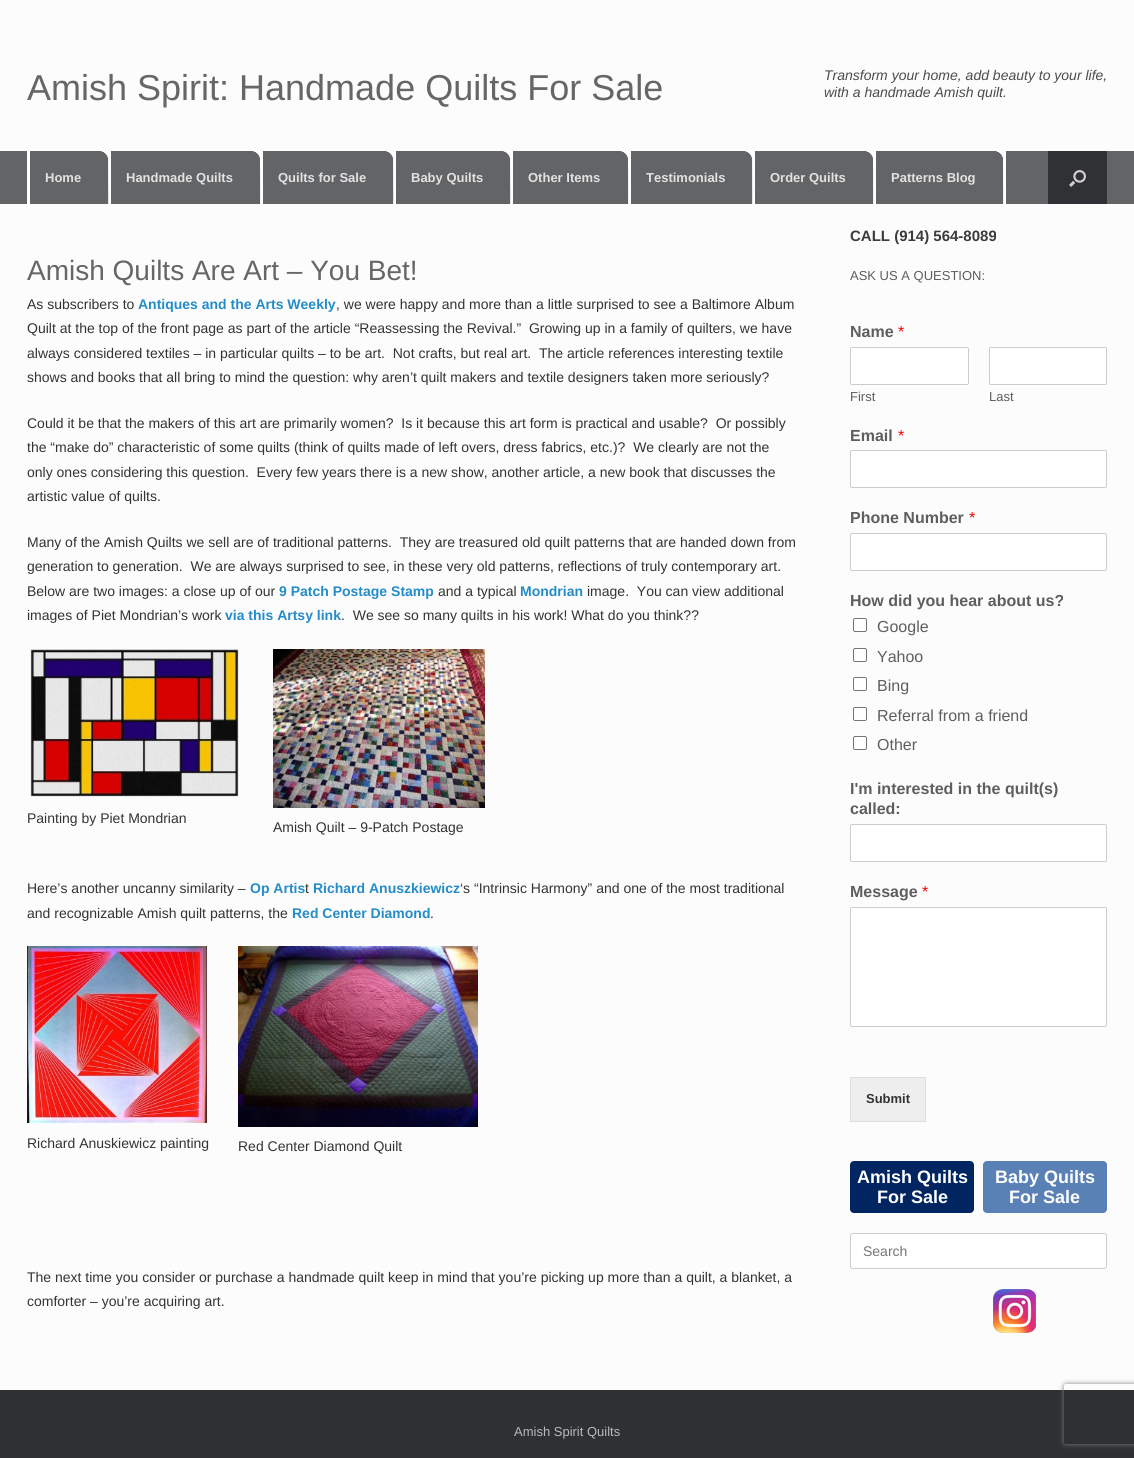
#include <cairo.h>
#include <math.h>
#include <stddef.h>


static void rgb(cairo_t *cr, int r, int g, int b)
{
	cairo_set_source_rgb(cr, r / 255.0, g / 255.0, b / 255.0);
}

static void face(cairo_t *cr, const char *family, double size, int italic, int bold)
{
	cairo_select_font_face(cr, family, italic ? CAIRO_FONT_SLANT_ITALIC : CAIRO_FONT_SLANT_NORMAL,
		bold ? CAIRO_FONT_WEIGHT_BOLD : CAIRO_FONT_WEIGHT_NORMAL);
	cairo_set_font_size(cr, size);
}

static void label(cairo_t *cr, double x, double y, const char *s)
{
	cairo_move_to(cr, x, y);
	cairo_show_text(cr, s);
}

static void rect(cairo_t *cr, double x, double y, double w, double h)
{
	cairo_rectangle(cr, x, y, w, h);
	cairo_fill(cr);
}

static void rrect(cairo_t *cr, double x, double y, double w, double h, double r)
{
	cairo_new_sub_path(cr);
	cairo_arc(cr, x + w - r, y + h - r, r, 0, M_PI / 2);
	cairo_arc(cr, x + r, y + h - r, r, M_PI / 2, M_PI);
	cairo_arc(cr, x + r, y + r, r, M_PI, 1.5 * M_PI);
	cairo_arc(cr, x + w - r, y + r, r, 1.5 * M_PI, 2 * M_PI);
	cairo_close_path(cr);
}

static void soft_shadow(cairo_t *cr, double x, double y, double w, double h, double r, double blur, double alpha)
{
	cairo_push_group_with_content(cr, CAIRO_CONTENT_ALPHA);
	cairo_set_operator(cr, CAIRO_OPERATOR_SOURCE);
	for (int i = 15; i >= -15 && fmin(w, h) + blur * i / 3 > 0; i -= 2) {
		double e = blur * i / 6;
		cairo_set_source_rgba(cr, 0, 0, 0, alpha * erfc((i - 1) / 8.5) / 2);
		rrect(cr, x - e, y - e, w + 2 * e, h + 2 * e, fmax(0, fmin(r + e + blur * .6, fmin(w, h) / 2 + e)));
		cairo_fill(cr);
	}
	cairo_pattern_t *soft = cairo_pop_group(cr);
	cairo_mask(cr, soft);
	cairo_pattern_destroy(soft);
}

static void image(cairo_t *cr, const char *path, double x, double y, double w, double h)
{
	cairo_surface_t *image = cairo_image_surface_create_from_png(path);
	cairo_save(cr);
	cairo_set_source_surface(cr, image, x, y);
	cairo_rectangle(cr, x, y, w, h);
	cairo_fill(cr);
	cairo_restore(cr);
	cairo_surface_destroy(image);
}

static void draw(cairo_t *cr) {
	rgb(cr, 47, 48, 51);
	cairo_paint(cr);
	rgb(cr, 252, 252, 252);
	rect(cr, 0, 0, 1134, 151);
	face(cr, "Liberation Sans", 36, 0, 0);
	rgb(cr, 102, 102, 102);
	label(cr, 27, 100, "Amish Spirit: Handmade Quilts For Sale");
	face(cr, "Liberation Sans", 14, 1, 0);
	rgb(cr, 75, 75, 75);
	label(cr, 824, 80, "Transform your home, add beauty to your life,");
	label(cr, 824, 97, "with a handmade Amish quilt.");
	rgb(cr, 99, 100, 102);
	rect(cr, 0, 151, 1134, 53);
	rgb(cr, 255, 255, 255);
	rect(cr, 27, 151, 3, 53);
	image(cr, "image0.png", 101, 151, 10, 53);
	face(cr, "Liberation Sans", 13, 0, 1);
	rgb(cr, 226, 226, 226);
	label(cr, 45, 182, "Home");
	image(cr, "image1.png", 253, 151, 10, 53);
	label(cr, 126, 182, "Handmade Quilts");
	image(cr, "image0.png", 386, 151, 10, 53);
	label(cr, 278, 182, "Quilts for Sale");
	image(cr, "image0.png", 503, 151, 10, 53);
	label(cr, 411, 182, "Baby Quilts");
	image(cr, "image1.png", 621, 151, 10, 53);
	label(cr, 528, 182, "Other Items");
	image(cr, "image0.png", 745, 151, 10, 53);
	label(cr, 646, 182, "Testimonials");
	image(cr, "image1.png", 866, 151, 10, 53);
	label(cr, 770, 182, "Order Quilts");
	image(cr, "image1.png", 996, 151, 10, 53);
	label(cr, 891, 182, "Patterns Blog");
	rgb(cr, 48, 49, 52);
	rect(cr, 1048, 151, 59, 53);
	image(cr, "image2.png", 1069, 170, 17, 17);
	rgb(cr, 252, 252, 252);
	rect(cr, 0, 204, 1134, 1186);
	face(cr, "Liberation Sans", 28, 0, 0);
	rgb(cr, 102, 102, 102);
	label(cr, 27, 280, "Amish Quilts Are Art – You Bet!");
	face(cr, "Liberation Sans", 14, 0, 0);
	rgb(cr, 51, 51, 51);
	label(cr, 27, 309, "As subscribers to");
	face(cr, "Liberation Sans", 14, 0, 1);
	rgb(cr, 36, 140, 200);
	label(cr, 138, 309, "Antiques and the Arts Weekly");
	face(cr, "Liberation Sans", 14, 0, 0);
	rgb(cr, 51, 51, 51);
	label(cr, 336, 309, ", we were happy and more than a little surprised to see a Baltimore Album");
	label(cr, 27, 333, "Quilt at the top of the front page as part of the article “Reassessing the Revival.”  Growing up in a family of quilters, we have");
	label(cr, 27, 358, "always considered textiles – in particular quilts – to be art.  Not crafts, but real art.  The article references interesting textile");
	label(cr, 27, 382, "shows and books that all bring to mind the question: why aren’t quilt makers and textile designers taken more seriously?");
	label(cr, 27, 428, "Could it be that the makers of this art are primarily women?  Is it because this art form is practical and usable?  Or possibly");
	label(cr, 27, 452, "the “make do” characteristic of some quilts (think of quilts made of left overs, dress fabrics, etc.)?  We clearly are not the");
	label(cr, 27, 477, "only ones considering this question.  Every few years there is a new show, another article, a new book that discusses the");
	label(cr, 27, 501, "artistic value of quilts.");
	label(cr, 27, 547, "Many of the Amish Quilts we sell are of traditional patterns.  They are treasured old quilt patterns that are handed down from");
	label(cr, 27, 571, "generation to generation.  We are always surprised to see, in these very old patterns, reflections of truly contemporary art.");
	label(cr, 27, 596, "Below are two images: a close up of our");
	face(cr, "Liberation Sans", 14, 0, 1);
	rgb(cr, 36, 140, 200);
	label(cr, 279, 596, "9 Patch Postage Stamp");
	face(cr, "Liberation Sans", 14, 0, 0);
	rgb(cr, 51, 51, 51);
	label(cr, 438, 596, "and a typical");
	face(cr, "Liberation Sans", 14, 0, 1);
	rgb(cr, 36, 140, 200);
	label(cr, 520, 596, "Mondrian");
	face(cr, "Liberation Sans", 14, 0, 0);
	rgb(cr, 51, 51, 51);
	label(cr, 587, 596, "image.  You can view additional");
	label(cr, 27, 620, "images of Piet Mondrian’s work");
	face(cr, "Liberation Sans", 14, 0, 1);
	rgb(cr, 36, 140, 200);
	label(cr, 225, 620, "via this Artsy link");
	face(cr, "Liberation Sans", 14, 0, 0);
	rgb(cr, 51, 51, 51);
	label(cr, 341, 620, ".  We see so many quilts in his work! What do you think?\077");
	image(cr, "image3.png", 30, 649, 210, 148);
	label(cr, 27, 823, "Painting by Piet Mondrian");
	image(cr, "image4.png", 273, 649, 212, 159);
	label(cr, 273, 832, "Amish Quilt – 9-Patch Postage");
	label(cr, 27, 893, "Here’s another uncanny similarity –");
	face(cr, "Liberation Sans", 14, 0, 1);
	rgb(cr, 36, 140, 200);
	label(cr, 250, 893, "Op Artis");
	face(cr, "Liberation Sans", 14, 0, 0);
	rgb(cr, 51, 51, 51);
	label(cr, 305, 893, "t");
	face(cr, "Liberation Sans", 14, 0, 1);
	rgb(cr, 36, 140, 200);
	label(cr, 313, 893, "Richard Anuszkiewicz");
	face(cr, "Liberation Sans", 14, 0, 0);
	rgb(cr, 51, 51, 51);
	label(cr, 460, 893, "‘s “Intrinsic Harmony” and one of the most traditional");
	label(cr, 27, 918, "and recognizable Amish quilt patterns, the");
	face(cr, "Liberation Sans", 14, 0, 1);
	rgb(cr, 36, 140, 200);
	label(cr, 292, 918, "Red Center Diamond");
	face(cr, "Liberation Sans", 14, 0, 0);
	rgb(cr, 51, 51, 51);
	label(cr, 430, 918, ".");
	image(cr, "image5.png", 27, 946, 180, 177);
	label(cr, 27, 1148, "Richard Anuskiewicz painting");
	image(cr, "image6.png", 238, 946, 240, 181);
	label(cr, 238, 1151, "Red Center Diamond Quilt");
	label(cr, 27, 1282, "The next time you consider or purchase a handmade quilt keep in mind that you’re picking up more than a quilt, a blanket, a");
	label(cr, 27, 1306, "comforter – you’re acquiring art.");
	face(cr, "Liberation Sans", 15, 0, 1);
	rgb(cr, 59, 59, 59);
	label(cr, 850, 241, "CALL (914) 564-8089");
	face(cr, "Liberation Sans", 13, 0, 0);
	rgb(cr, 94, 94, 94);
	label(cr, 850, 280, "ASK US A QUESTION:");
	face(cr, "Liberation Sans", 16, 0, 1);
	label(cr, 850, 337, "Name");
	face(cr, "Liberation Sans", 16, 0, 0);
	rgb(cr, 255, 0, 0);
	label(cr, 898, 337, "*");
	rgb(cr, 255, 255, 255);
	rrect(cr, 850.5, 347.5, 118, 37, 1.5);
	cairo_fill_preserve(cr);
	rgb(cr, 204, 204, 204);
	cairo_set_line_width(cr, 1);
	cairo_stroke(cr);
	face(cr, "Liberation Sans", 13, 0, 0);
	rgb(cr, 94, 94, 94);
	label(cr, 850, 401, "First");
	rgb(cr, 255, 255, 255);
	rrect(cr, 989.5, 347.5, 117, 37, 1.5);
	cairo_fill_preserve(cr);
	rgb(cr, 204, 204, 204);
	cairo_stroke(cr);
	rgb(cr, 94, 94, 94);
	label(cr, 989, 401, "Last");
	face(cr, "Liberation Sans", 16, 0, 1);
	label(cr, 850, 441, "Email");
	face(cr, "Liberation Sans", 16, 0, 0);
	rgb(cr, 255, 0, 0);
	label(cr, 898, 441, "*");
	rgb(cr, 255, 255, 255);
	rrect(cr, 850.5, 450.5, 256, 37, 1.5);
	cairo_fill_preserve(cr);
	rgb(cr, 204, 204, 204);
	cairo_stroke(cr);
	face(cr, "Liberation Sans", 16, 0, 1);
	rgb(cr, 94, 94, 94);
	label(cr, 850, 523, "Phone Number");
	face(cr, "Liberation Sans", 16, 0, 0);
	rgb(cr, 255, 0, 0);
	label(cr, 969, 523, "*");
	rgb(cr, 255, 255, 255);
	rrect(cr, 850.5, 533.5, 256, 37, 1.5);
	cairo_fill_preserve(cr);
	rgb(cr, 204, 204, 204);
	cairo_stroke(cr);
	face(cr, "Liberation Sans", 16, 0, 1);
	rgb(cr, 94, 94, 94);
	label(cr, 850, 606, "How did you hear about us?");
	rgb(cr, 255, 255, 255);
	rrect(cr, 853.5, 618.5, 13, 13, 1.5);
	cairo_fill_preserve(cr);
	rgb(cr, 118, 118, 118);
	cairo_stroke(cr);
	face(cr, "Liberation Sans", 16, 0, 0);
	rgb(cr, 94, 94, 94);
	label(cr, 877, 632, "Google");
	rgb(cr, 255, 255, 255);
	rrect(cr, 853.5, 648.5, 13, 13, 1.5);
	cairo_fill_preserve(cr);
	rgb(cr, 118, 118, 118);
	cairo_stroke(cr);
	rgb(cr, 94, 94, 94);
	label(cr, 877, 662, "Yahoo");
	rgb(cr, 255, 255, 255);
	rrect(cr, 853.5, 677.5, 13, 13, 1.5);
	cairo_fill_preserve(cr);
	rgb(cr, 118, 118, 118);
	cairo_stroke(cr);
	rgb(cr, 94, 94, 94);
	label(cr, 877, 691, "Bing");
	rgb(cr, 255, 255, 255);
	rrect(cr, 853.5, 707.5, 13, 13, 1.5);
	cairo_fill_preserve(cr);
	rgb(cr, 118, 118, 118);
	cairo_stroke(cr);
	rgb(cr, 94, 94, 94);
	label(cr, 877, 721, "Referral from a friend");
	rgb(cr, 255, 255, 255);
	rrect(cr, 853.5, 736.5, 13, 13, 1.5);
	cairo_fill_preserve(cr);
	rgb(cr, 118, 118, 118);
	cairo_stroke(cr);
	rgb(cr, 94, 94, 94);
	label(cr, 877, 750, "Other");
	face(cr, "Liberation Sans", 16, 0, 1);
	label(cr, 850, 794, "I'm interested in the quilt(s)");
	label(cr, 850, 814, "called:");
	rgb(cr, 255, 255, 255);
	rrect(cr, 850.5, 824.5, 256, 37, 1.5);
	cairo_fill_preserve(cr);
	rgb(cr, 204, 204, 204);
	cairo_stroke(cr);
	rgb(cr, 94, 94, 94);
	label(cr, 850, 897, "Message");
	face(cr, "Liberation Sans", 16, 0, 0);
	rgb(cr, 255, 0, 0);
	label(cr, 922, 897, "*");
	rgb(cr, 255, 255, 255);
	rrect(cr, 850.5, 907.5, 256, 119, 1.5);
	cairo_fill_preserve(cr);
	rgb(cr, 204, 204, 204);
	cairo_stroke(cr);
	rgb(cr, 238, 238, 238);
	cairo_rectangle(cr, 850.5, 1077.5, 75, 44);
	cairo_fill_preserve(cr);
	rgb(cr, 221, 221, 221);
	cairo_stroke(cr);
	face(cr, "Liberation Sans", 13, 0, 1);
	rgb(cr, 51, 51, 51);
	label(cr, 866, 1103, "Submit");
	rgb(cr, 0, 37, 97);
	rrect(cr, 850, 1161, 124, 52, 4);
	cairo_fill(cr);
	face(cr, "Liberation Sans", 18, 0, 1);
	rgb(cr, 255, 255, 255);
	label(cr, 857, 1183, "Amish Quilts");
	label(cr, 877, 1203, "For Sale");
	rgb(cr, 89, 129, 181);
	rrect(cr, 983, 1161, 124, 52, 4);
	cairo_fill(cr);
	rgb(cr, 255, 255, 255);
	label(cr, 995, 1183, "Baby Quilts");
	label(cr, 1009, 1203, "For Sale");
	rrect(cr, 850.5, 1233.5, 256, 35, 2.5);
	cairo_fill_preserve(cr);
	rgb(cr, 204, 204, 204);
	cairo_stroke(cr);
	face(cr, "Liberation Sans", 14, 0, 0);
	rgb(cr, 117, 117, 117);
	label(cr, 863, 1256, "Search");
	image(cr, "image7.png", 993, 1289, 43, 44);
	face(cr, "Liberation Sans", 13, 0, 0);
	rgb(cr, 185, 185, 185);
	label(cr, 514, 1436, "Amish Spirit Quilts");
	cairo_save(cr);
	cairo_set_fill_rule(cr, CAIRO_FILL_RULE_EVEN_ODD);
	cairo_new_path(cr);
	cairo_move_to(cr, 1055, 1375);
	cairo_line_to(cr, 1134, 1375);
	cairo_line_to(cr, 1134, 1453);
	cairo_line_to(cr, 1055, 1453);
	cairo_close_path(cr);
	cairo_move_to(cr, 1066, 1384);
	cairo_line_to(cr, 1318, 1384);
	cairo_curve_to(cr, 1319, 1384, 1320, 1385, 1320, 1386);
	cairo_line_to(cr, 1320, 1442);
	cairo_curve_to(cr, 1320, 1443, 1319, 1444, 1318, 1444);
	cairo_line_to(cr, 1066, 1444);
	cairo_curve_to(cr, 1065, 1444, 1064, 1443, 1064, 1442);
	cairo_line_to(cr, 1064, 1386);
	cairo_curve_to(cr, 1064, 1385, 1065, 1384, 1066, 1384);
	cairo_close_path(cr);
	cairo_clip(cr);
	rgb(cr, 128, 128, 128);
	soft_shadow(cr, 1064, 1384, 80, 60, 2, 2.5, 1);
	cairo_restore(cr);
}

int main(void) {
	cairo_surface_t *surface = cairo_image_surface_create(CAIRO_FORMAT_RGB24, 1134, 1458);
	cairo_t *cr = cairo_create(surface);
	cairo_font_options_t *options = cairo_font_options_create();
	cairo_font_options_set_hint_metrics(options, CAIRO_HINT_METRICS_OFF);
	cairo_font_options_set_hint_style(options, CAIRO_HINT_STYLE_NONE);
	cairo_set_font_options(cr, options);
	cairo_set_miter_limit(cr, 4);
	draw(cr);
	cairo_surface_write_to_png(surface, "render.png");
	cairo_font_options_destroy(options);
	cairo_destroy(cr);
	cairo_surface_destroy(surface);
	return 0;
}
